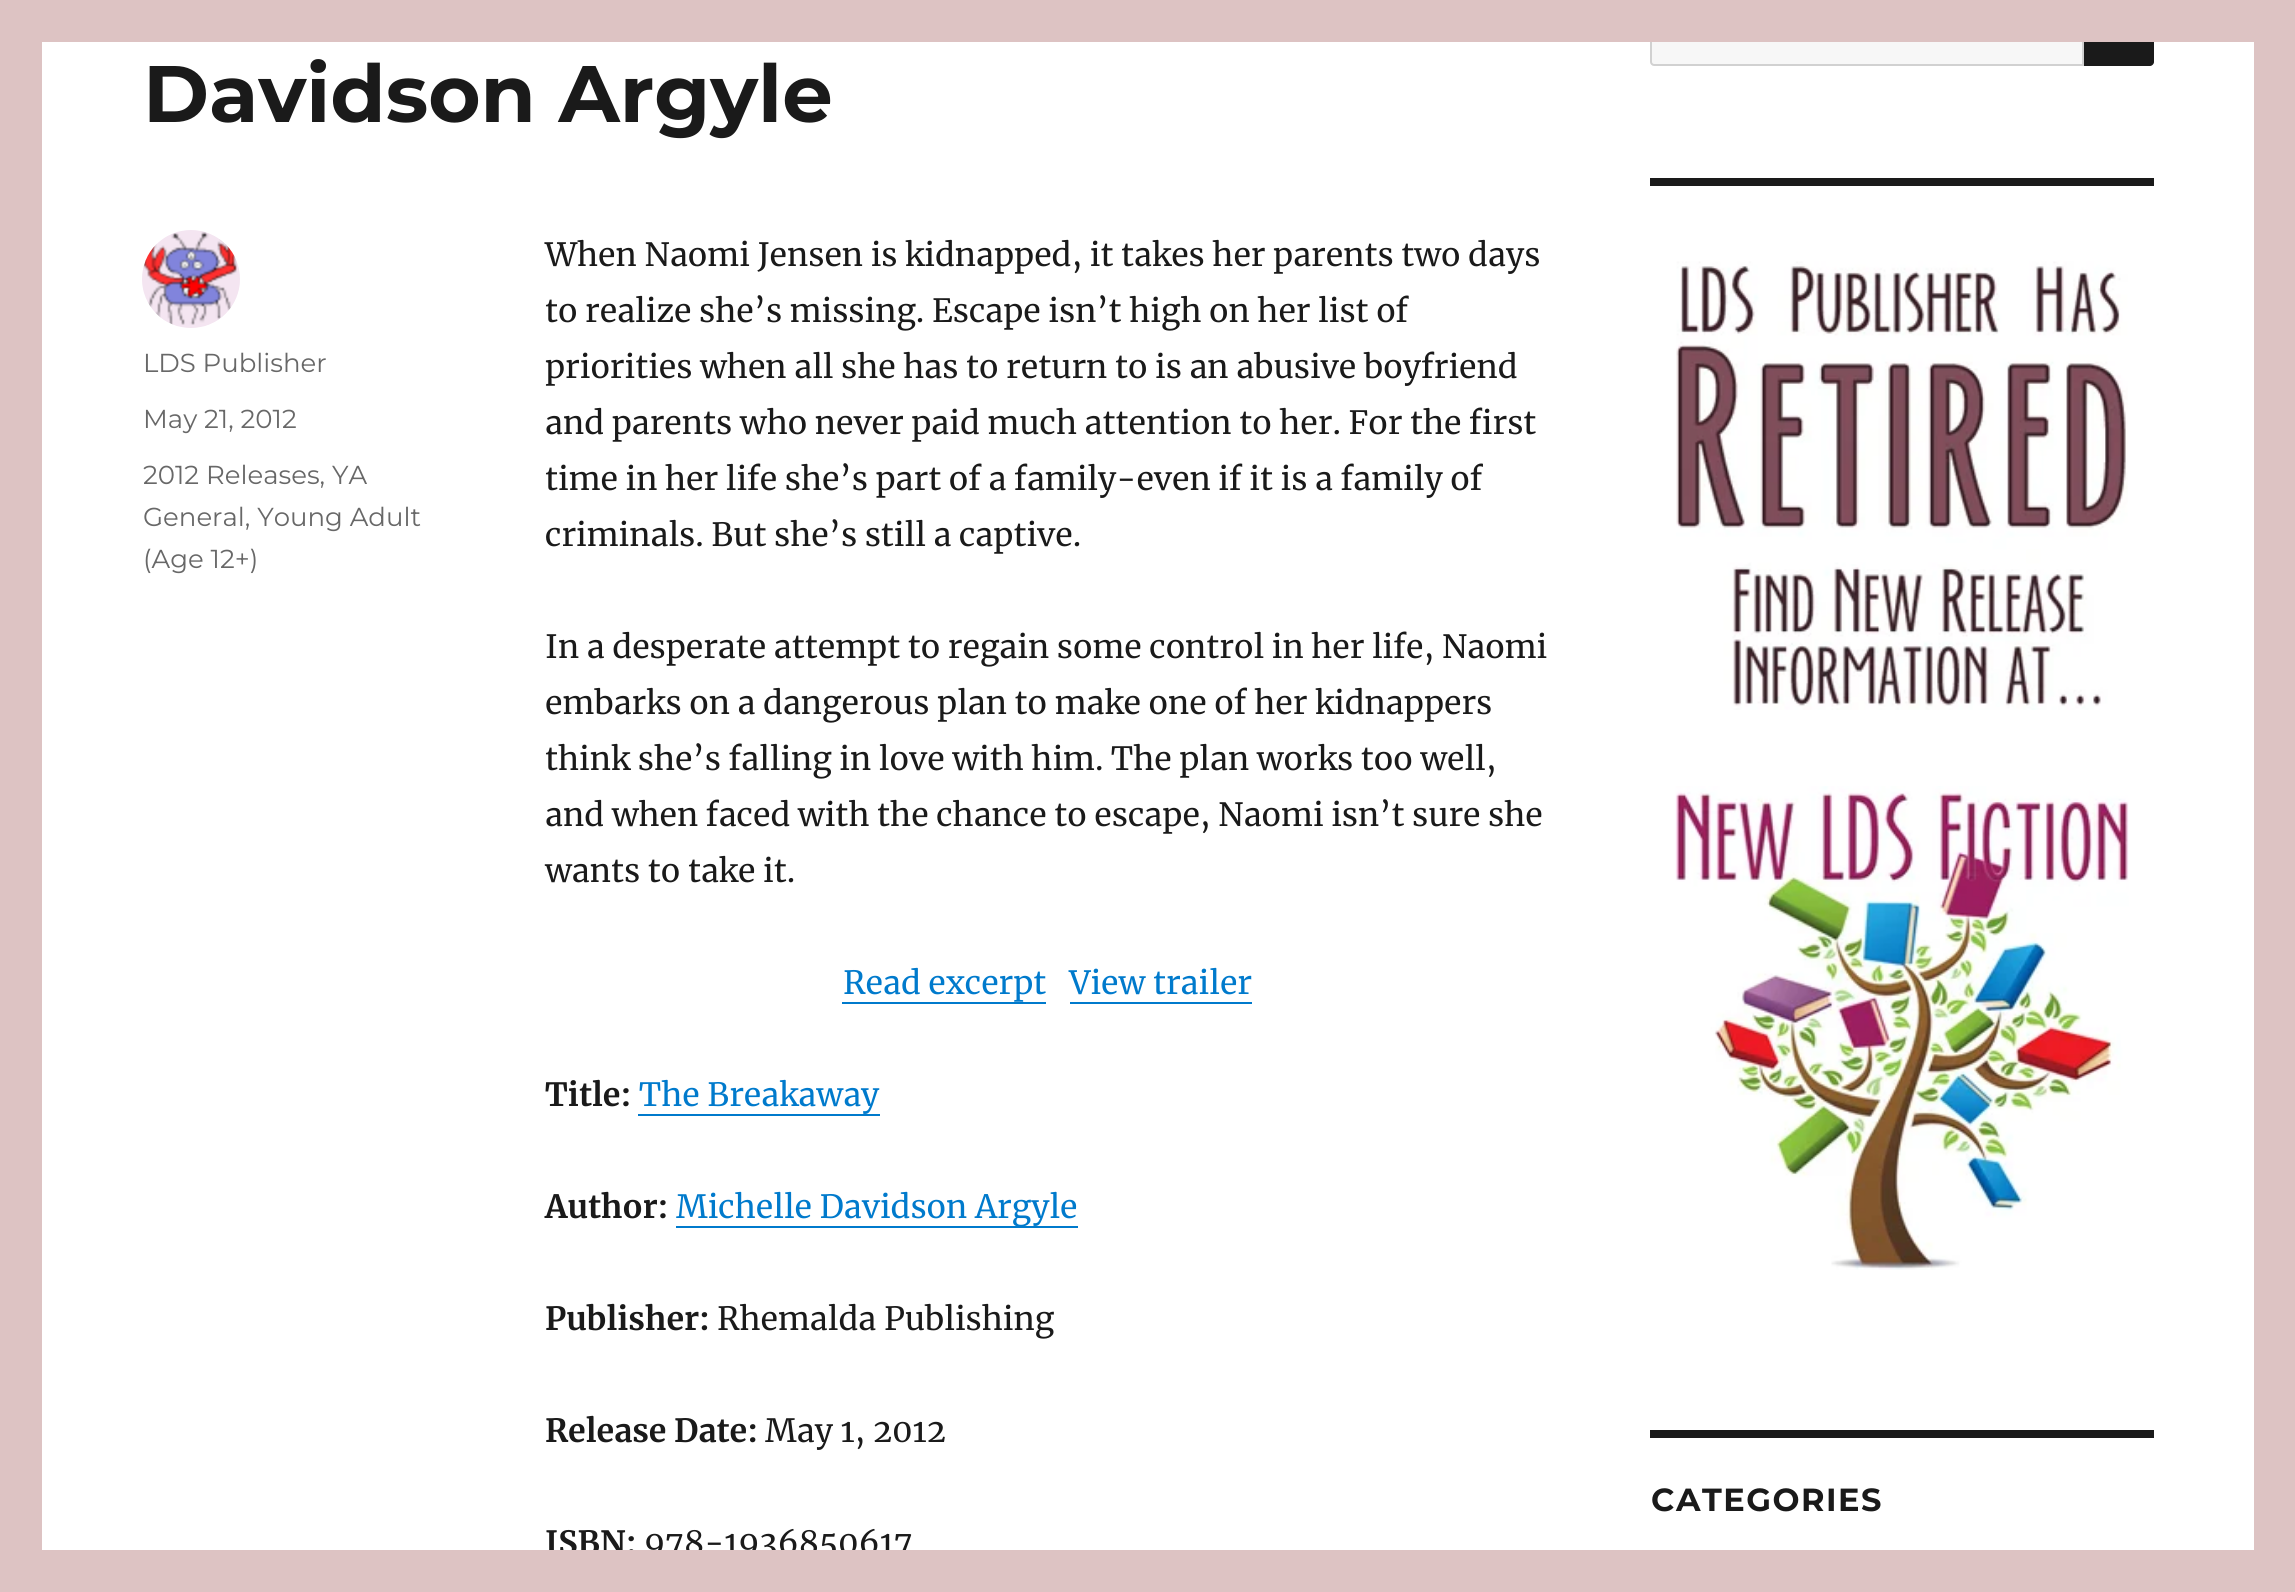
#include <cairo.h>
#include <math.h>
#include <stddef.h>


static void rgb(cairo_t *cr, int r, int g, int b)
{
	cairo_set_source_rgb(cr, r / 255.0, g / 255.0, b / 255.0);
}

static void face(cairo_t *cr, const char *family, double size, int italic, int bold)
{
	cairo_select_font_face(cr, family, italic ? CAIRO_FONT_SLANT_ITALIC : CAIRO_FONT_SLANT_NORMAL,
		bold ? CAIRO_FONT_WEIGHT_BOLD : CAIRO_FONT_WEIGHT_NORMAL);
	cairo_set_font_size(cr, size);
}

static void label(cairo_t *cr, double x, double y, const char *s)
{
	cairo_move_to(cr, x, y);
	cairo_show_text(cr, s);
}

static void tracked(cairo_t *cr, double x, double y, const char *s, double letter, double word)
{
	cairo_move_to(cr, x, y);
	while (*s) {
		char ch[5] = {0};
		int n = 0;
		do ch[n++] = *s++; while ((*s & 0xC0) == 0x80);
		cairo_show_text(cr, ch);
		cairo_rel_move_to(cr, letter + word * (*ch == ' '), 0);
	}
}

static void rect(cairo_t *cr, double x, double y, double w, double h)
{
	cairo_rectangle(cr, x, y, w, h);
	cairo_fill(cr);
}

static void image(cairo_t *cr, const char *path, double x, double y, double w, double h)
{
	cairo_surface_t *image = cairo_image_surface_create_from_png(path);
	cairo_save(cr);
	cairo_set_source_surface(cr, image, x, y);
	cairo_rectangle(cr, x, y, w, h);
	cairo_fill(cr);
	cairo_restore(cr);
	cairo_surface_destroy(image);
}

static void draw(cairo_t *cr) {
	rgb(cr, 221, 195, 195);
	cairo_paint(cr);
	rgb(cr, 255, 255, 255);
	rect(cr, 42, 42, 2212, 1508);
	rgb(cr, 247, 247, 247);
	cairo_new_path(cr);
	cairo_move_to(cr, 1654, -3);
	cairo_line_to(cr, 2083, -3);
	cairo_line_to(cr, 2083, 65);
	cairo_line_to(cr, 1654, 65);
	cairo_curve_to(cr, 1652.5, 65, 1651, 63.5, 1651, 62);
	cairo_line_to(cr, 1651, 0);
	cairo_curve_to(cr, 1651, -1.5, 1652.5, -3, 1654, -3);
	cairo_close_path(cr);
	cairo_fill_preserve(cr);
	rgb(cr, 209, 209, 209);
	cairo_stroke(cr);
	rgb(cr, 26, 26, 26);
	cairo_new_path(cr);
	cairo_move_to(cr, 2084, -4);
	cairo_line_to(cr, 2150, -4);
	cairo_curve_to(cr, 2152, -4, 2154, -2, 2154, 0);
	cairo_line_to(cr, 2154, 62);
	cairo_curve_to(cr, 2154, 64, 2152, 66, 2150, 66);
	cairo_line_to(cr, 2084, 66);
	cairo_close_path(cr);
	cairo_fill(cr);
	rgb(cr, 221, 195, 195);
	rect(cr, 1650, 0, 504, 42);
	face(cr, "Montserrat Thin", 80, 0, 0);
	rgb(cr, 26, 26, 26);
	label(cr, 143, 122, "Davidson Argyle");
	image(cr, "image0.png", 142, 230, 98, 98);
	face(cr, "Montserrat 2 Thin", 26, 0, 0);
	rgb(cr, 104, 104, 104);
	label(cr, 143, 372, "LDS Publisher");
	label(cr, 143, 428, "May 21, 2012");
	label(cr, 143, 484, "2012 Releases, YA");
	label(cr, 143, 526, "General, Young Adult");
	label(cr, 143, 568, "(Age 12+)");
	face(cr, "Merriweather", 32, 0, 0);
	rgb(cr, 26, 26, 26);
	label(cr, 545, 266, "When Naomi Jensen is kidnapped, it takes her parents two days");
	label(cr, 545, 322, "to realize she’s missing. Escape isn’t high on her list of");
	label(cr, 545, 378, "priorities when all she has to return to is an abusive boyfriend");
	label(cr, 545, 434, "and parents who never paid much attention to her. For the first");
	label(cr, 545, 490, "time in her life she’s part of a family-even if it is a family of");
	label(cr, 545, 546, "criminals. But she’s still a captive.");
	label(cr, 545, 658, "In a desperate attempt to regain some control in her life, Naomi");
	label(cr, 545, 714, "embarks on a dangerous plan to make one of her kidnappers");
	label(cr, 545, 770, "think she’s falling in love with him. The plan works too well,");
	label(cr, 545, 826, "and when faced with the chance to escape, Naomi isn’t sure she");
	label(cr, 545, 882, "wants to take it.");
	rgb(cr, 0, 122, 204);
	label(cr, 843, 994, "Read excerpt");
	rect(cr, 842, 1002, 204, 2);
	label(cr, 1069, 994, "View trailer");
	rect(cr, 1070, 1002, 182, 2);
	face(cr, "Merriweather", 32, 0, 1);
	rgb(cr, 26, 26, 26);
	label(cr, 545, 1106, "Title:");
	face(cr, "Merriweather", 32, 0, 0);
	rgb(cr, 0, 122, 204);
	label(cr, 639, 1106, "The Breakaway");
	rect(cr, 638, 1114, 242, 2);
	face(cr, "Merriweather", 32, 0, 1);
	rgb(cr, 26, 26, 26);
	label(cr, 545, 1218, "Author:");
	rgb(cr, 0, 122, 204);
	rect(cr, 676, 1226, 402, 2);
	face(cr, "Merriweather", 32, 0, 0);
	label(cr, 676, 1218, "Michelle Davidson Argyle");
	face(cr, "Merriweather", 32, 0, 1);
	rgb(cr, 26, 26, 26);
	label(cr, 545, 1330, "Publisher:");
	face(cr, "Merriweather", 32, 0, 0);
	label(cr, 717, 1330, "Rhemalda Publishing");
	face(cr, "Merriweather", 32, 0, 1);
	label(cr, 545, 1442, "Release Date:");
	face(cr, "Merriweather", 32, 0, 0);
	label(cr, 765, 1442, "May 1, 2012");
	face(cr, "Merriweather", 32, 0, 1);
	label(cr, 545, 1554, "ISBN:");
	face(cr, "Merriweather", 32, 0, 0);
	label(cr, 644, 1554, "978-1936850617");
	rect(cr, 1650, 178, 504, 8);
	image(cr, "image1.png", 1676, 261, 452, 449);
	image(cr, "image2.png", 1675, 786, 454, 484);
	rect(cr, 1650, 1430, 504, 8);
	face(cr, "Montserrat Thin", 32, 0, 0);
	tracked(cr, 1651, 1511, "CATEGORIES", 1.5, 0);
	rgb(cr, 221, 195, 195);
	rect(cr, 546, 1550, 360, 10);
}

int main(void) {
	cairo_surface_t *surface = cairo_image_surface_create(CAIRO_FORMAT_RGB24, 2295, 1592);
	cairo_t *cr = cairo_create(surface);
	cairo_font_options_t *options = cairo_font_options_create();
	cairo_font_options_set_hint_metrics(options, CAIRO_HINT_METRICS_OFF);
	cairo_font_options_set_hint_style(options, CAIRO_HINT_STYLE_NONE);
	cairo_set_font_options(cr, options);
	cairo_set_miter_limit(cr, 4);
	draw(cr);
	cairo_surface_write_to_png(surface, "render.png");
	cairo_font_options_destroy(options);
	cairo_destroy(cr);
	cairo_surface_destroy(surface);
	return 0;
}
